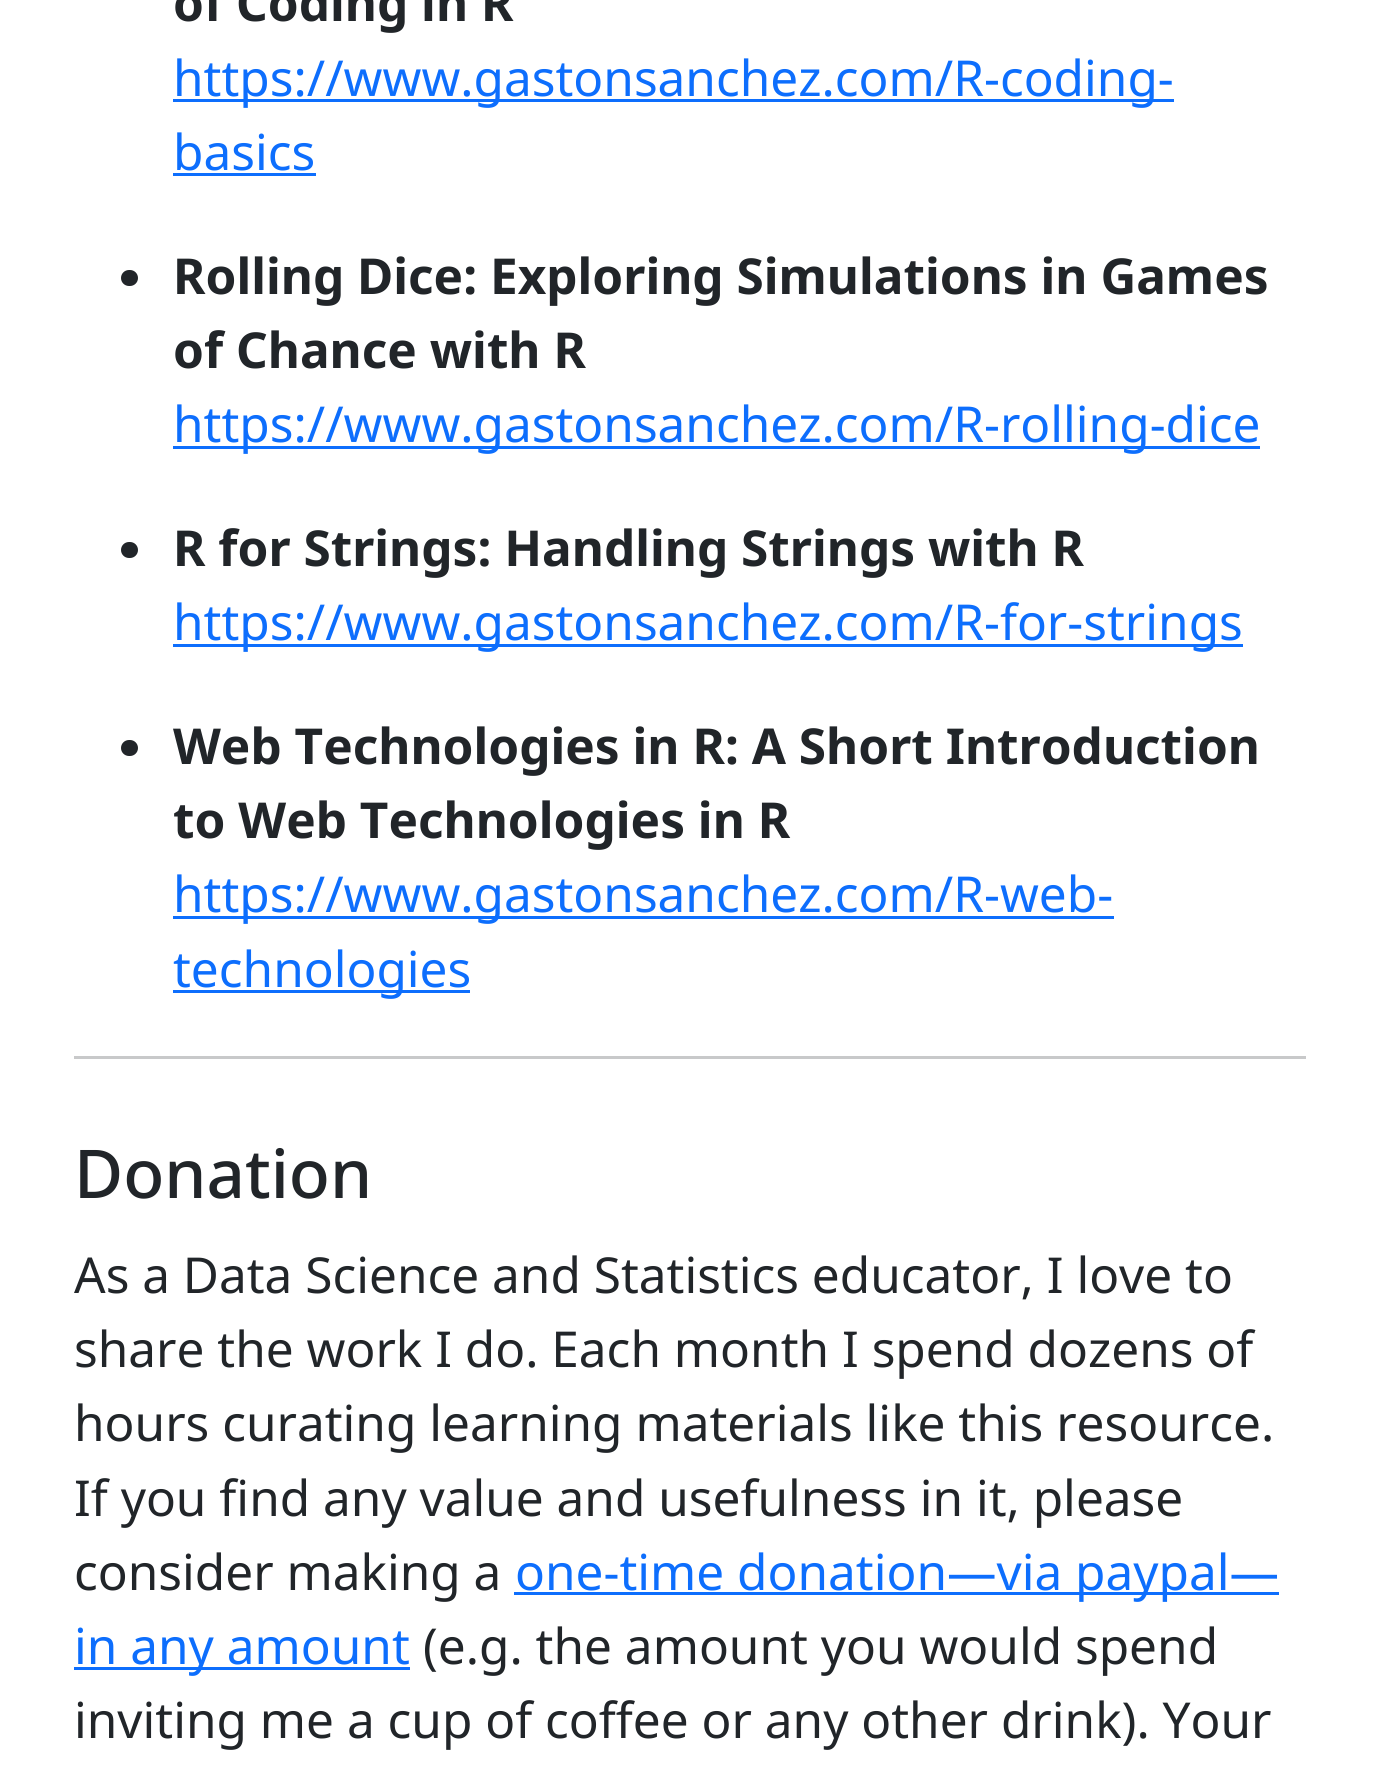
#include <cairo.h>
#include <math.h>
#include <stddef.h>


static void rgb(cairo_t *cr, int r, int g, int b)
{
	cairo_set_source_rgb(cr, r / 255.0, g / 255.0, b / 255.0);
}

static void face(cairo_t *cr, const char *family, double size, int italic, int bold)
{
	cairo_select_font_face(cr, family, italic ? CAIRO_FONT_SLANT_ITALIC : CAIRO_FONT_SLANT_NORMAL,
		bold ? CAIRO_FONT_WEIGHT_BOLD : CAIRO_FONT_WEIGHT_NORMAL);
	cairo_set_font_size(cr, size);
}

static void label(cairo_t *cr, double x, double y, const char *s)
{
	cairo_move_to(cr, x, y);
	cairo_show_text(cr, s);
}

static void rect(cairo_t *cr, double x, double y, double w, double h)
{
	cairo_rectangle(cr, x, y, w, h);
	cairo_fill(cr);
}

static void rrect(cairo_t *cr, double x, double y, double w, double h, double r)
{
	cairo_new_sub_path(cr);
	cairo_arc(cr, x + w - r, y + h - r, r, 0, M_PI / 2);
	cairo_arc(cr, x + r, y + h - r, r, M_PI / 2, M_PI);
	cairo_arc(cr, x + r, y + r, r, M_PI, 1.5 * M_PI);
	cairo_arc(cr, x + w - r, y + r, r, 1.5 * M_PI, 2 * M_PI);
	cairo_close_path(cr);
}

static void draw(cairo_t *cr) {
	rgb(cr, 255, 255, 255);
	cairo_paint(cr);
	face(cr, "Noto Sans", 49.5, 0, 1);
	rgb(cr, 33, 37, 41);
	label(cr, 173, 21, "of Coding in R");
	rgb(cr, 13, 110, 253);
	rect(cr, 173, 99, 1001, 3);
	face(cr, "Noto Sans", 49.5, 0, 0);
	label(cr, 173, 96, "https://www.gastonsanchez.com/R-coding-");
	label(cr, 173, 170, "basics");
	rect(cr, 173, 173, 143, 3);
	rgb(cr, 33, 37, 41);
	rrect(cr, 121, 270, 17, 16, 8);
	cairo_fill(cr);
	face(cr, "Noto Sans", 49.5, 0, 1);
	label(cr, 173, 294, "Rolling Dice: Exploring Simulations in Games");
	label(cr, 173, 368, "of Chance with R");
	rgb(cr, 13, 110, 253);
	rect(cr, 173, 446, 1087, 3);
	face(cr, "Noto Sans", 49.5, 0, 0);
	label(cr, 173, 442, "https://www.gastonsanchez.com/R-rolling-dice");
	rgb(cr, 33, 37, 41);
	rrect(cr, 121, 542, 17, 16, 8);
	cairo_fill(cr);
	face(cr, "Noto Sans", 49.5, 0, 1);
	label(cr, 173, 566, "R for Strings: Handling Strings with R");
	rgb(cr, 13, 110, 253);
	rect(cr, 173, 644, 1070, 3);
	face(cr, "Noto Sans", 49.5, 0, 0);
	label(cr, 173, 640, "https://www.gastonsanchez.com/R-for-strings");
	rgb(cr, 33, 37, 41);
	rrect(cr, 121, 740, 17, 16, 8);
	cairo_fill(cr);
	face(cr, "Noto Sans", 49.5, 0, 1);
	label(cr, 173, 764, "Web Technologies in R: A Short Introduction");
	label(cr, 173, 838, "to Web Technologies in R");
	rgb(cr, 13, 110, 253);
	rect(cr, 173, 916, 941, 3);
	face(cr, "Noto Sans", 49.5, 0, 0);
	label(cr, 173, 912, "https://www.gastonsanchez.com/R-web-");
	rect(cr, 173, 990, 297, 3);
	label(cr, 173, 987, "technologies");
	rgb(cr, 200, 201, 202);
	rect(cr, 74, 1056, 1232, 3);
	face(cr, "Noto Sans Medium", 67.25, 0, 0);
	rgb(cr, 33, 37, 41);
	label(cr, 74, 1198, "Donation");
	face(cr, "Noto Sans", 49.5, 0, 0);
	label(cr, 74, 1293, "As a Data Science and Statistics educator, I love to");
	label(cr, 74, 1367, "share the work I do. Each month I spend dozens of");
	label(cr, 74, 1441, "hours curating learning materials like this resource.");
	label(cr, 74, 1516, "If you find any value and usefulness in it, please");
	label(cr, 74, 1590, "consider making a");
	rgb(cr, 13, 110, 253);
	rect(cr, 514, 1592, 765, 3);
	label(cr, 515, 1590, "one-time donation—via paypal—");
	rect(cr, 74, 1667, 336, 3);
	label(cr, 74, 1664, "in any amount");
	rgb(cr, 33, 37, 41);
	label(cr, 423, 1664, "(e.g. the amount you would spend");
	label(cr, 74, 1738, "inviting me a cup of coffee or any other drink). Your");
}

int main(void) {
	cairo_surface_t *surface = cairo_image_surface_create(CAIRO_FORMAT_RGB24, 1380, 1781);
	cairo_t *cr = cairo_create(surface);
	cairo_font_options_t *options = cairo_font_options_create();
	cairo_font_options_set_hint_metrics(options, CAIRO_HINT_METRICS_OFF);
	cairo_font_options_set_hint_style(options, CAIRO_HINT_STYLE_NONE);
	cairo_set_font_options(cr, options);
	cairo_set_miter_limit(cr, 4);
	draw(cr);
	cairo_surface_write_to_png(surface, "render.png");
	cairo_font_options_destroy(options);
	cairo_destroy(cr);
	cairo_surface_destroy(surface);
	return 0;
}
